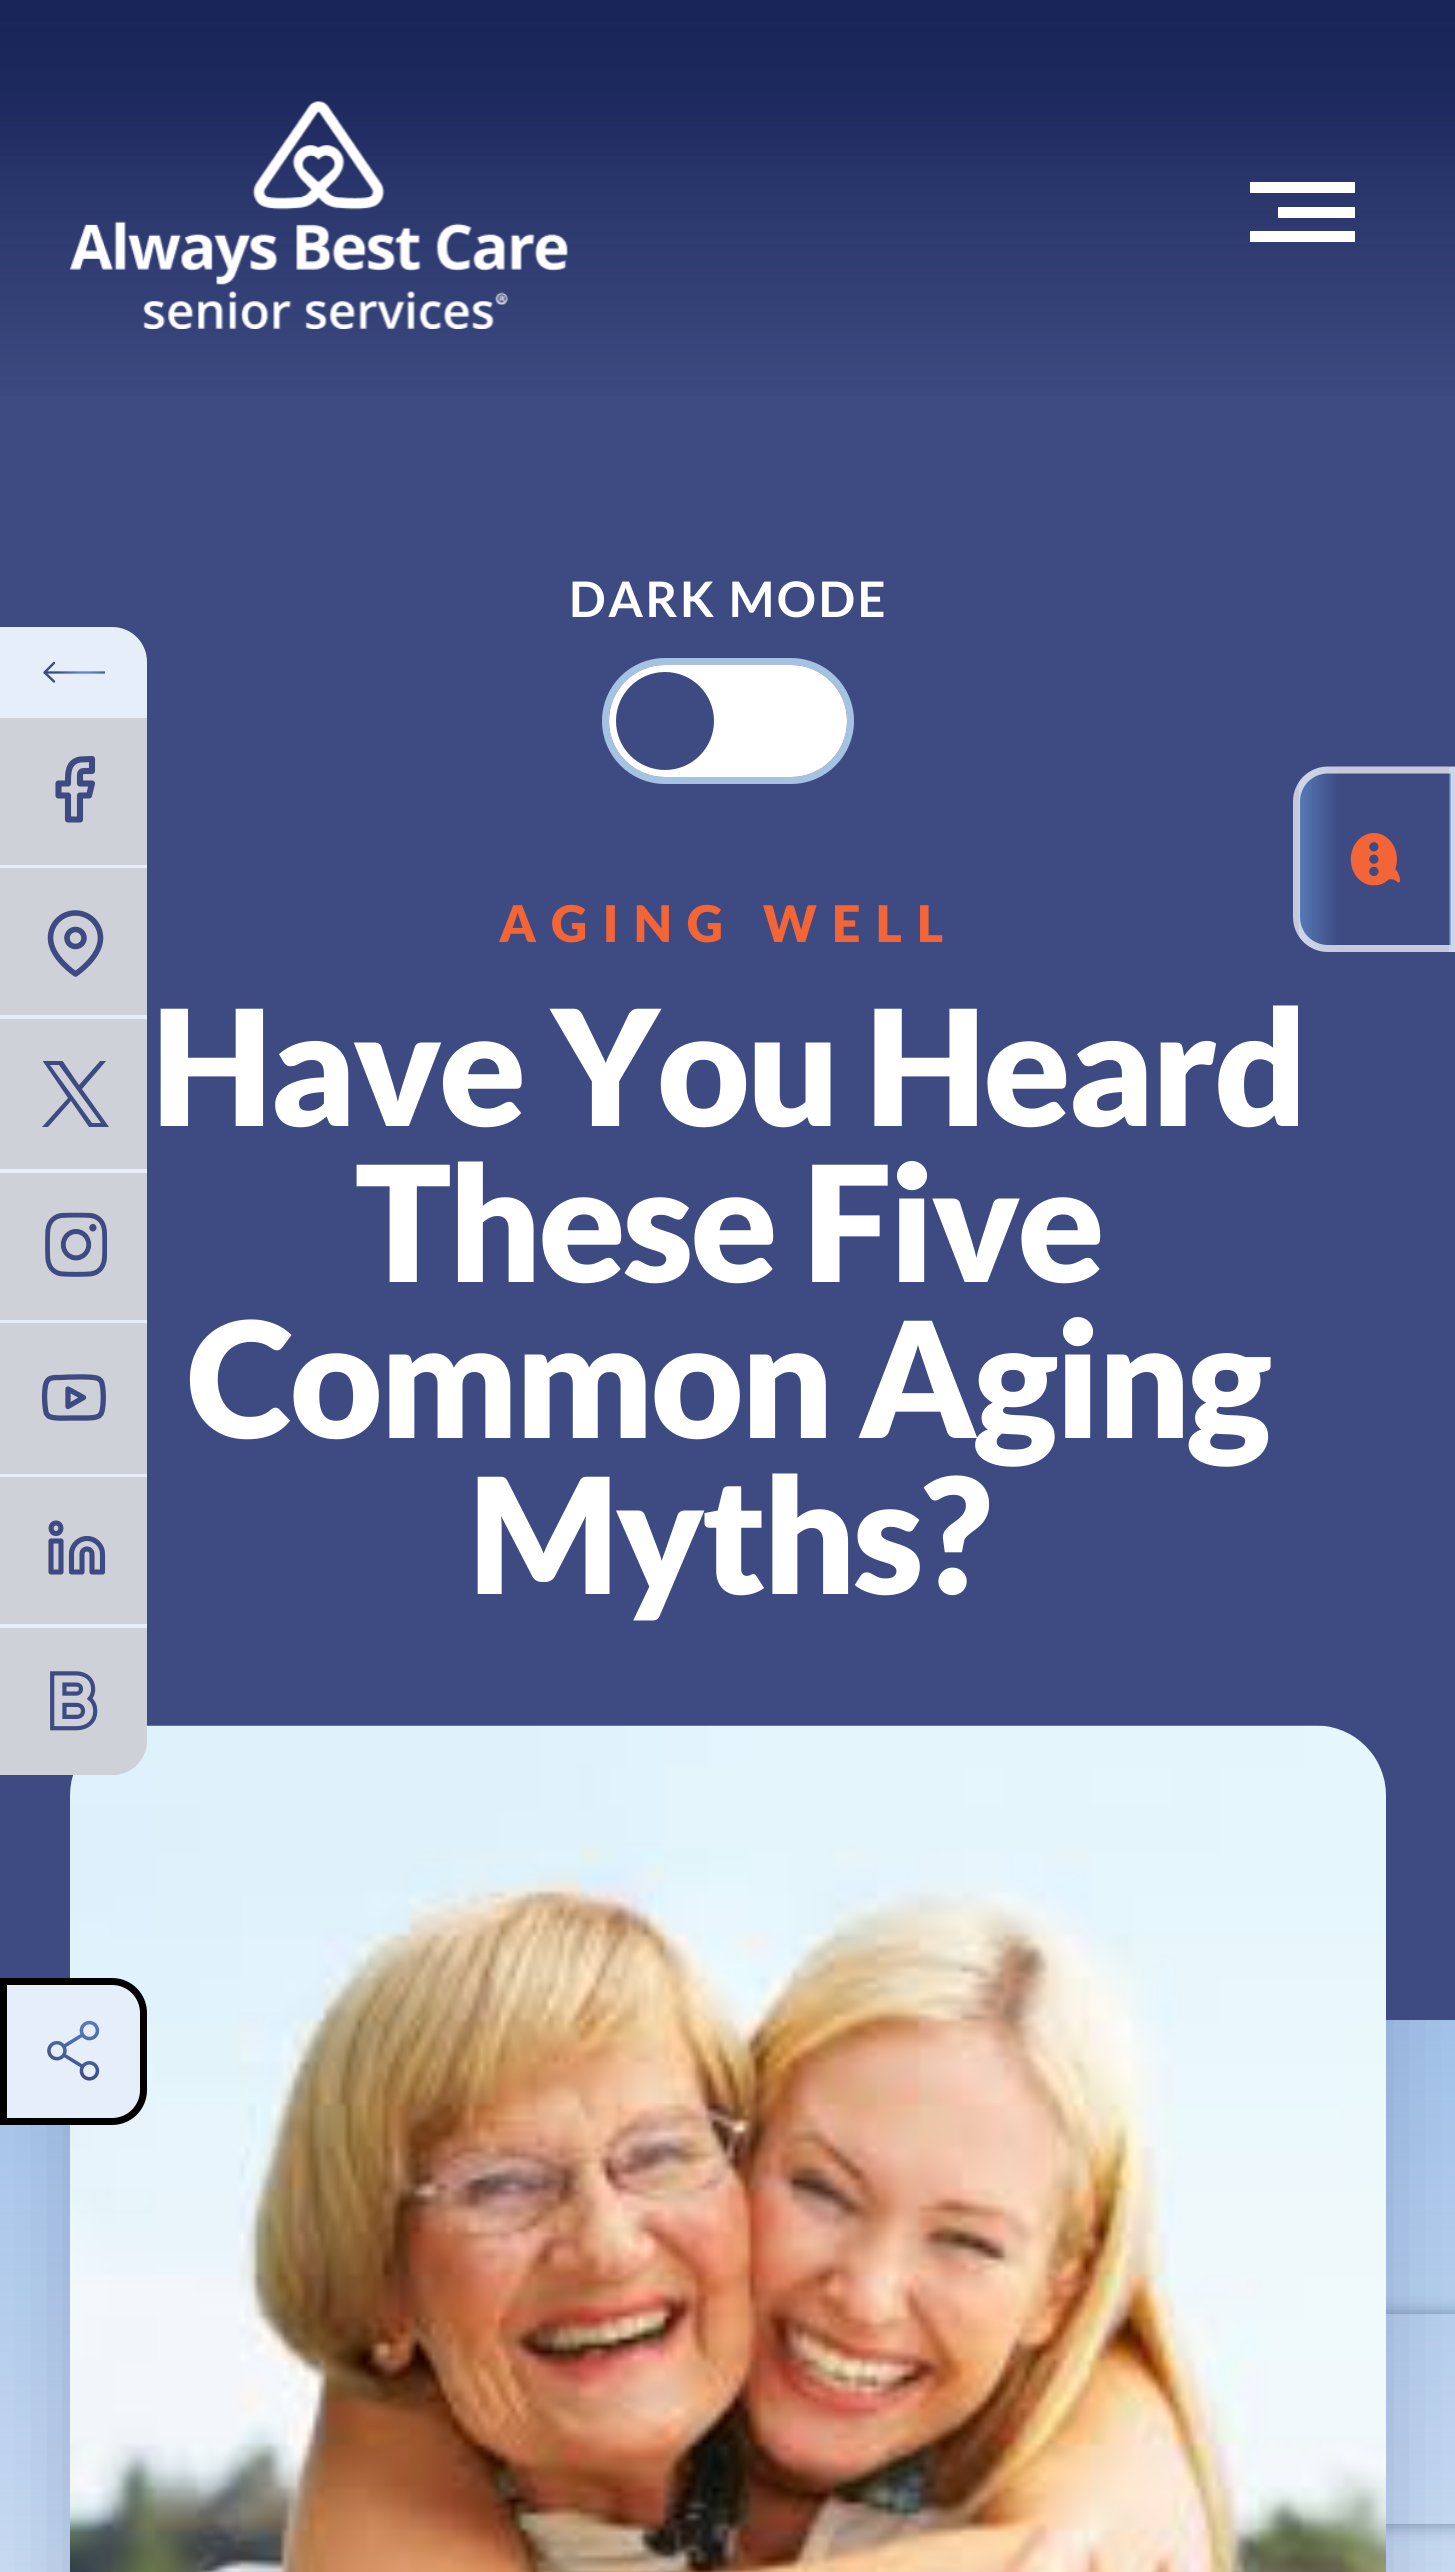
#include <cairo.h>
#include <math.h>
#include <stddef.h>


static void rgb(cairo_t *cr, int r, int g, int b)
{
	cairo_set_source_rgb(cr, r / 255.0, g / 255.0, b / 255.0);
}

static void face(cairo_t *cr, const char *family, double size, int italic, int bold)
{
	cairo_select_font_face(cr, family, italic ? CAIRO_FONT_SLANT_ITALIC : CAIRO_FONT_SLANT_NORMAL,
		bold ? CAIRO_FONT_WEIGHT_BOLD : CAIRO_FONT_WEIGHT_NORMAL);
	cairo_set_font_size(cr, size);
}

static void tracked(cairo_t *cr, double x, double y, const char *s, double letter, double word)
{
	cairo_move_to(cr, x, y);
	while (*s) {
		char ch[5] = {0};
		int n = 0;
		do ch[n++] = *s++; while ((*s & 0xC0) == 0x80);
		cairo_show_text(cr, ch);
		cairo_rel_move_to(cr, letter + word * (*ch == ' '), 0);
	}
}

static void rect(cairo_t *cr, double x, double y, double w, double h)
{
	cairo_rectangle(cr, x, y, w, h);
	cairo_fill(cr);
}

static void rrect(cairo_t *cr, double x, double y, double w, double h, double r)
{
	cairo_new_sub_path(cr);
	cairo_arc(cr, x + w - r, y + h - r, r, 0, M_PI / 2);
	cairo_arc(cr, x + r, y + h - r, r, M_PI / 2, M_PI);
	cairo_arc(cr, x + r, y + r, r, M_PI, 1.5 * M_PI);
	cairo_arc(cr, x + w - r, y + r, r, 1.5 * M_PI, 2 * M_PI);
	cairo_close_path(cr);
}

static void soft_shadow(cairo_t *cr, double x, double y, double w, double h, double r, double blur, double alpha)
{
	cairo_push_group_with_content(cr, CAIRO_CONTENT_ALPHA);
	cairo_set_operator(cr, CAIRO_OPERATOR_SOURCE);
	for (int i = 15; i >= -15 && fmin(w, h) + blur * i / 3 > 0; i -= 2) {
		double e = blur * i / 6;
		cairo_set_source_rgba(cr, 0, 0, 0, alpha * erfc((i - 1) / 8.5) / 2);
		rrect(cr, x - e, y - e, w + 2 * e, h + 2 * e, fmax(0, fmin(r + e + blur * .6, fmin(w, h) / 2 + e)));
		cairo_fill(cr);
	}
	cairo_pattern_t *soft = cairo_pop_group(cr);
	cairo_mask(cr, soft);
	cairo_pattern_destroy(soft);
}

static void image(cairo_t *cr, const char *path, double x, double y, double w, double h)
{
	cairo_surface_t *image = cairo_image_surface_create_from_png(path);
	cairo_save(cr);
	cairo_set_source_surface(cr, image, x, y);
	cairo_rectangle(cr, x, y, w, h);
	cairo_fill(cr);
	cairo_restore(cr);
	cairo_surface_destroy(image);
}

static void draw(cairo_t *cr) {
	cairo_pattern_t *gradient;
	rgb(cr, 255, 255, 255);
	cairo_paint(cr);
	gradient = cairo_pattern_create_linear(728, 0, 728, 175);
	cairo_pattern_add_color_stop_rgba(gradient, 0, 0.098, 0.145, 0.349, 1);
	cairo_pattern_add_color_stop_rgba(gradient, 1, 0.243, 0.294, 0.51, 1);
	cairo_set_source(cr, gradient);
	cairo_pattern_destroy(gradient);
	rect(cr, 0, 2, 1455, 173);
	rgb(cr, 62, 75, 130);
	rect(cr, 0, 175, 1455, 1845);
	gradient = cairo_pattern_create_linear(728, 0, 728, 420);
	cairo_pattern_add_color_stop_rgba(gradient, 0, 0.098, 0.145, 0.349, 1);
	cairo_pattern_add_color_stop_rgba(gradient, 1, 0.098, 0.145, 0.349, 0);
	cairo_set_source(cr, gradient);
	cairo_pattern_destroy(gradient);
	rect(cr, 0, 0, 1455, 396);
	image(cr, "image0.png", 70, 101, 498, 228);
	rgb(cr, 255, 255, 255);
	rect(cr, 1278, 207, 77, 11);
	rect(cr, 1250, 182, 105, 11);
	rect(cr, 1250, 231, 105, 11);
	rgb(cr, 230, 239, 249);
	cairo_new_path(cr);
	cairo_move_to(cr, 0, 627);
	cairo_line_to(cr, 112, 627);
	cairo_curve_to(cr, 131.5, 627, 147, 642.5, 147, 662);
	cairo_line_to(cr, 147, 718);
	cairo_line_to(cr, 0, 718);
	cairo_close_path(cr);
	cairo_fill(cr);
	cairo_save(cr);
	cairo_rectangle(cr, 42, 648, 63, 49);
	cairo_clip(cr);
	cairo_new_path(cr);
	cairo_move_to(cr, 104.5, 672.5);
	cairo_line_to(cr, 44.5, 672.5);
	cairo_move_to(cr, 44.5, 672.5);
	cairo_line_to(cr, 54, 681.5);
	cairo_move_to(cr, 44.5, 672.5);
	cairo_line_to(cr, 54, 663);
	gradient = cairo_pattern_create_radial(0, 0, 0, 0, 0, 1);
	cairo_pattern_set_matrix(gradient, &(cairo_matrix_t){1.0 / 29, 0, 0, 1.0 / 92, -1.0 * 85 / 29, -1.0 * 651 / 92});
	cairo_pattern_add_color_stop_rgba(gradient, 0, 0.404, 0.616, 0.867, 1);
	cairo_pattern_add_color_stop_rgba(gradient, 1, 0.243, 0.294, 0.51, 1);
	cairo_set_source(cr, gradient);
	cairo_pattern_destroy(gradient);
	cairo_set_line_width(cr, 2.4);
	cairo_set_line_cap(cr, CAIRO_LINE_CAP_ROUND);
	cairo_set_line_join(cr, CAIRO_LINE_JOIN_ROUND);
	cairo_stroke(cr);
	cairo_restore(cr);
	cairo_save(cr);
	cairo_set_fill_rule(cr, CAIRO_FILL_RULE_EVEN_ODD);
	cairo_new_path(cr);
	cairo_move_to(cr, 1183, 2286);
	cairo_line_to(cr, 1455, 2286);
	cairo_line_to(cr, 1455, 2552);
	cairo_line_to(cr, 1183, 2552);
	cairo_close_path(cr);
	cairo_move_to(cr, 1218, 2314);
	cairo_line_to(cr, 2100, 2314);
	cairo_curve_to(cr, 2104, 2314, 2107, 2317, 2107, 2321);
	cairo_line_to(cr, 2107, 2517);
	cairo_curve_to(cr, 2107, 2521, 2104, 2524, 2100, 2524);
	cairo_line_to(cr, 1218, 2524);
	cairo_curve_to(cr, 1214, 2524, 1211, 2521, 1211, 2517);
	cairo_line_to(cr, 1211, 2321);
	cairo_curve_to(cr, 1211, 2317, 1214, 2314, 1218, 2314);
	cairo_close_path(cr);
	cairo_clip(cr);
	rgb(cr, 128, 128, 128);
	soft_shadow(cr, 1211, 2314, 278, 210, 7, 9, 1);
	cairo_restore(cr);
	gradient = cairo_pattern_create_linear(728, 2020, 728, 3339);
	cairo_pattern_add_color_stop_rgba(gradient, 0, 0.404, 0.616, 0.867, 0.6);
	cairo_pattern_add_color_stop_rgba(gradient, 1, 0.404, 0.616, 0.867, 0);
	cairo_set_source(cr, gradient);
	cairo_pattern_destroy(gradient);
	rect(cr, 0, 2020, 1455, 552);
	rgb(cr, 62, 75, 130);
	soft_shadow(cr, 70, 1740, 1316, 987, 70, 47, 0.3);
	image(cr, "image4.png", 70, 1725, 1316, 847);
	rgb(cr, 207, 209, 217);
	cairo_new_path(cr);
	cairo_move_to(cr, 0, 718);
	cairo_line_to(cr, 147, 718);
	cairo_line_to(cr, 147, 1740);
	cairo_curve_to(cr, 147, 1759.5, 131.5, 1775, 112, 1775);
	cairo_line_to(cr, 0, 1775);
	cairo_close_path(cr);
	cairo_fill(cr);
	rgb(cr, 230, 239, 249);
	rect(cr, 0, 865, 147, 3);
	cairo_new_path(cr);
	cairo_move_to(cr, 92, 759);
	cairo_line_to(cr, 80, 759.5);
	cairo_curve_to(cr, 67.5, 762, 68, 773.5, 68, 783.5);
	cairo_line_to(cr, 58.5, 783.5);
	cairo_line_to(cr, 58.5, 795.5);
	cairo_line_to(cr, 68, 795.5);
	cairo_line_to(cr, 68, 819.5);
	cairo_line_to(cr, 80, 819.5);
	cairo_line_to(cr, 80, 795.5);
	cairo_line_to(cr, 89, 795.5);
	cairo_line_to(cr, 92, 783.5);
	cairo_line_to(cr, 80, 783.5);
	cairo_curve_to(cr, 80, 769.5, 78.5, 771, 92, 771);
	cairo_close_path(cr);
	rgb(cr, 62, 75, 130);
	cairo_set_line_width(cr, 6.1);
	cairo_set_line_cap(cr, CAIRO_LINE_CAP_ROUND);
	cairo_set_line_join(cr, CAIRO_LINE_JOIN_ROUND);
	cairo_stroke(cr);
	rgb(cr, 230, 239, 249);
	rect(cr, 0, 1015, 147, 4);
	cairo_new_path(cr);
	cairo_move_to(cr, 100.5, 938);
	cairo_curve_to(cr, 100.5, 957.5, 75.5, 974, 75.5, 974);
	cairo_curve_to(cr, 75.5, 974, 50.5, 957.5, 50.5, 938);
	cairo_curve_to(cr, 50.5, 924, 61.5, 913, 75.5, 913);
	cairo_curve_to(cr, 89, 913, 100.5, 924, 100.5, 938);
	cairo_close_path(cr);
	rgb(cr, 62, 75, 130);
	cairo_set_line_width(cr, 5.6);
	cairo_stroke(cr);
	cairo_arc(cr, 75.5, 938, 8.5, 0, 2 * M_PI);
	cairo_set_line_cap(cr, CAIRO_LINE_CAP_BUTT);
	cairo_set_line_join(cr, CAIRO_LINE_JOIN_MITER);
	cairo_stroke(cr);
	rgb(cr, 230, 239, 249);
	rect(cr, 0, 1169, 147, 4);
	cairo_save(cr);
	cairo_rectangle(cr, 42, 1061, 67, 66);
	cairo_clip(cr);
	rgb(cr, 62, 75, 130);
	cairo_new_path(cr);
	cairo_move_to(cr, 82, 1089);
	cairo_line_to(cr, 107, 1060);
	cairo_line_to(cr, 101, 1060);
	cairo_line_to(cr, 79, 1085);
	cairo_line_to(cr, 62, 1060);
	cairo_line_to(cr, 42, 1060);
	cairo_line_to(cr, 68, 1098);
	cairo_line_to(cr, 42, 1127);
	cairo_line_to(cr, 48, 1127);
	cairo_line_to(cr, 71, 1101);
	cairo_line_to(cr, 89, 1127);
	cairo_line_to(cr, 109, 1127);
	cairo_move_to(cr, 50, 1065);
	cairo_line_to(cr, 59, 1065);
	cairo_line_to(cr, 101, 1123);
	cairo_line_to(cr, 92, 1123);
	cairo_fill(cr);
	cairo_restore(cr);
	rect(cr, 0, 1320, 147, 3);
	image(cr, "image1.png", 45, 1212, 63, 65);
	rect(cr, 0, 1474, 147, 3);
	cairo_new_path(cr);
	cairo_move_to(cr, 102, 1383.5);
	cairo_curve_to(cr, 101.5, 1381, 100, 1379.5, 98, 1378.5);
	cairo_curve_to(cr, 92.5, 1376, 68, 1377, 60.5, 1377.5);
	cairo_curve_to(cr, 56.5, 1377.5, 51, 1377, 48, 1380);
	cairo_curve_to(cr, 43, 1385, 44.5, 1405.5, 46, 1412);
	cairo_curve_to(cr, 46, 1413.5, 47.5, 1415, 48.5, 1416);
	cairo_curve_to(cr, 53, 1419, 66, 1418, 71, 1418);
	cairo_line_to(cr, 87.5, 1418);
	cairo_curve_to(cr, 99.5, 1417.5, 102, 1416.5, 103, 1404.5);
	cairo_curve_to(cr, 103.5, 1397.5, 103.5, 1390.5, 102, 1383.5);
	cairo_close_path(cr);
	rgb(cr, 62, 75, 130);
	cairo_set_line_width(cr, 5.3);
	cairo_set_line_cap(cr, CAIRO_LINE_CAP_ROUND);
	cairo_set_line_join(cr, CAIRO_LINE_JOIN_ROUND);
	cairo_stroke(cr);
	cairo_new_path(cr);
	cairo_move_to(cr, 68, 1406.5);
	cairo_line_to(cr, 83.5, 1397.5);
	cairo_line_to(cr, 68, 1389);
	cairo_close_path(cr);
	cairo_stroke(cr);
	rgb(cr, 230, 239, 249);
	rect(cr, 0, 1624, 147, 4);
	cairo_new_path(cr);
	cairo_move_to(cr, 87, 1538.5);
	cairo_curve_to(cr, 95.5, 1538.5, 102.5, 1545.5, 102.5, 1554);
	cairo_line_to(cr, 102.5, 1572);
	cairo_line_to(cr, 92, 1572);
	cairo_line_to(cr, 92, 1554);
	cairo_curve_to(cr, 92, 1551, 89.5, 1549, 87, 1549);
	cairo_curve_to(cr, 84, 1549, 82, 1551, 82, 1554);
	cairo_line_to(cr, 82, 1572);
	cairo_line_to(cr, 71.5, 1572);
	cairo_line_to(cr, 71.5, 1554);
	cairo_curve_to(cr, 71.5, 1545.5, 78.5, 1538.5, 87, 1538.5);
	cairo_close_path(cr);
	cairo_move_to(cr, 61, 1541);
	cairo_line_to(cr, 51, 1541);
	cairo_line_to(cr, 51, 1572);
	cairo_line_to(cr, 61, 1572);
	cairo_close_path(cr);
	cairo_move_to(cr, 56, 1533.5);
	cairo_curve_to(cr, 62.5, 1533.5, 62.5, 1523, 56, 1523);
	cairo_curve_to(cr, 49.5, 1523, 49.5, 1533.5, 56, 1533.5);
	cairo_close_path(cr);
	rgb(cr, 62, 75, 130);
	cairo_set_line_width(cr, 5.1);
	cairo_stroke(cr);
	rgb(cr, 207, 209, 217);
	cairo_new_path(cr);
	cairo_move_to(cr, 0, 1628);
	cairo_line_to(cr, 147, 1628);
	cairo_line_to(cr, 147, 1740);
	cairo_curve_to(cr, 147, 1759.5, 131.5, 1775, 112, 1775);
	cairo_line_to(cr, 0, 1775);
	cairo_close_path(cr);
	cairo_fill(cr);
	image(cr, "image2.png", 50, 1671, 48, 60);
	rgb(cr, 230, 239, 249);
	cairo_new_path(cr);
	cairo_move_to(cr, 3.5, 1981.5);
	cairo_line_to(cr, 112, 1981.5);
	cairo_curve_to(cr, 129.5, 1981.5, 143.5, 1995.5, 143.5, 2013);
	cairo_line_to(cr, 143.5, 2090);
	cairo_curve_to(cr, 143.5, 2107.5, 129.5, 2121.5, 112, 2121.5);
	cairo_line_to(cr, 3.5, 2121.5);
	cairo_close_path(cr);
	cairo_fill_preserve(cr);
	rgb(cr, 0, 0, 0);
	cairo_set_line_width(cr, 7);
	cairo_set_line_cap(cr, CAIRO_LINE_CAP_BUTT);
	cairo_set_line_join(cr, CAIRO_LINE_JOIN_MITER);
	cairo_stroke(cr);
	image(cr, "image3.png", 47, 2020, 53, 61);
	face(cr, "Lato", 49, 0, 1);
	rgb(cr, 255, 255, 255);
	tracked(cr, 569, 617, "DARK MODE", 2.5, 0);
	rrect(cr, 605.5, 661.5, 245, 119, 59.5);
	rgb(cr, 165, 194, 227);
	cairo_stroke(cr);
	rgb(cr, 255, 255, 255);
	rrect(cr, 611, 667, 234, 108, 54);
	cairo_fill_preserve(cr);
	cairo_set_line_width(cr, 4);
	cairo_stroke(cr);
	rgb(cr, 62, 75, 130);
	cairo_arc(cr, 665, 721, 49, 0, 2 * M_PI);
	cairo_fill(cr);
	face(cr, "Lato Black", 50.5, 0, 0);
	rgb(cr, 243, 100, 55);
	tracked(cr, 499, 942, "AGING WELL", 15.1, 0);
	face(cr, "Lato Black", 161, 0, 0);
	rgb(cr, 255, 255, 255);
	tracked(cr, 151, 1126, "Have You Heard", -3.25, 0);
	tracked(cr, 355, 1282, "These Five", -3.25, 0);
	tracked(cr, 187, 1438, "Common Aging", -3.25, 0);
	tracked(cr, 468, 1594, "Myths?", -3.25, 0);
	gradient = cairo_pattern_create_linear(1451, 859, 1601, 859);
	cairo_pattern_add_color_stop_rgba(gradient, 0, 0.337, 0.478, 0.718, 1);
	cairo_pattern_add_color_stop_rgba(gradient, 0.25, 0.243, 0.294, 0.51, 1);
	cairo_set_source(cr, gradient);
	cairo_pattern_destroy(gradient);
	rect(cr, 1449, 767, 6, 185);
	gradient = cairo_pattern_create_linear(1300, 859, 1451, 859);
	cairo_pattern_add_color_stop_rgba(gradient, 0, 0.337, 0.478, 0.718, 1);
	cairo_pattern_add_color_stop_rgba(gradient, 0.25, 0.243, 0.294, 0.51, 1);
	cairo_set_source(cr, gradient);
	cairo_pattern_destroy(gradient);
	cairo_new_path(cr);
	cairo_move_to(cr, 1299, 782);
	cairo_curve_to(cr, 1304, 774, 1313, 769, 1322, 767);
	cairo_line_to(cr, 1449, 767);
	cairo_line_to(cr, 1449, 952);
	cairo_line_to(cr, 1328, 952);
	cairo_curve_to(cr, 1316, 952, 1305, 946, 1299, 936);
	cairo_close_path(cr);
	cairo_fill(cr);
	cairo_new_path(cr);
	cairo_move_to(cr, 1454, 948.5);
	cairo_line_to(cr, 1328, 948.5);
	cairo_curve_to(cr, 1310.5, 948.5, 1296.5, 934.5, 1296.5, 917);
	cairo_line_to(cr, 1296.5, 801.5);
	cairo_curve_to(cr, 1296.5, 784, 1310.5, 770, 1328, 770);
	cairo_line_to(cr, 1454, 770);
	cairo_close_path(cr);
	cairo_set_source_rgba(cr, 1, 1, 1, 0.7);
	cairo_set_line_width(cr, 7);
	cairo_stroke(cr);
	image(cr, "image5.png", 1350, 833, 50, 53);
}

int main(void) {
	cairo_surface_t *surface = cairo_image_surface_create(CAIRO_FORMAT_RGB24, 1455, 2572);
	cairo_t *cr = cairo_create(surface);
	cairo_font_options_t *options = cairo_font_options_create();
	cairo_font_options_set_hint_metrics(options, CAIRO_HINT_METRICS_OFF);
	cairo_font_options_set_hint_style(options, CAIRO_HINT_STYLE_NONE);
	cairo_set_font_options(cr, options);
	cairo_set_miter_limit(cr, 4);
	draw(cr);
	cairo_surface_write_to_png(surface, "render.png");
	cairo_font_options_destroy(options);
	cairo_destroy(cr);
	cairo_surface_destroy(surface);
	return 0;
}
